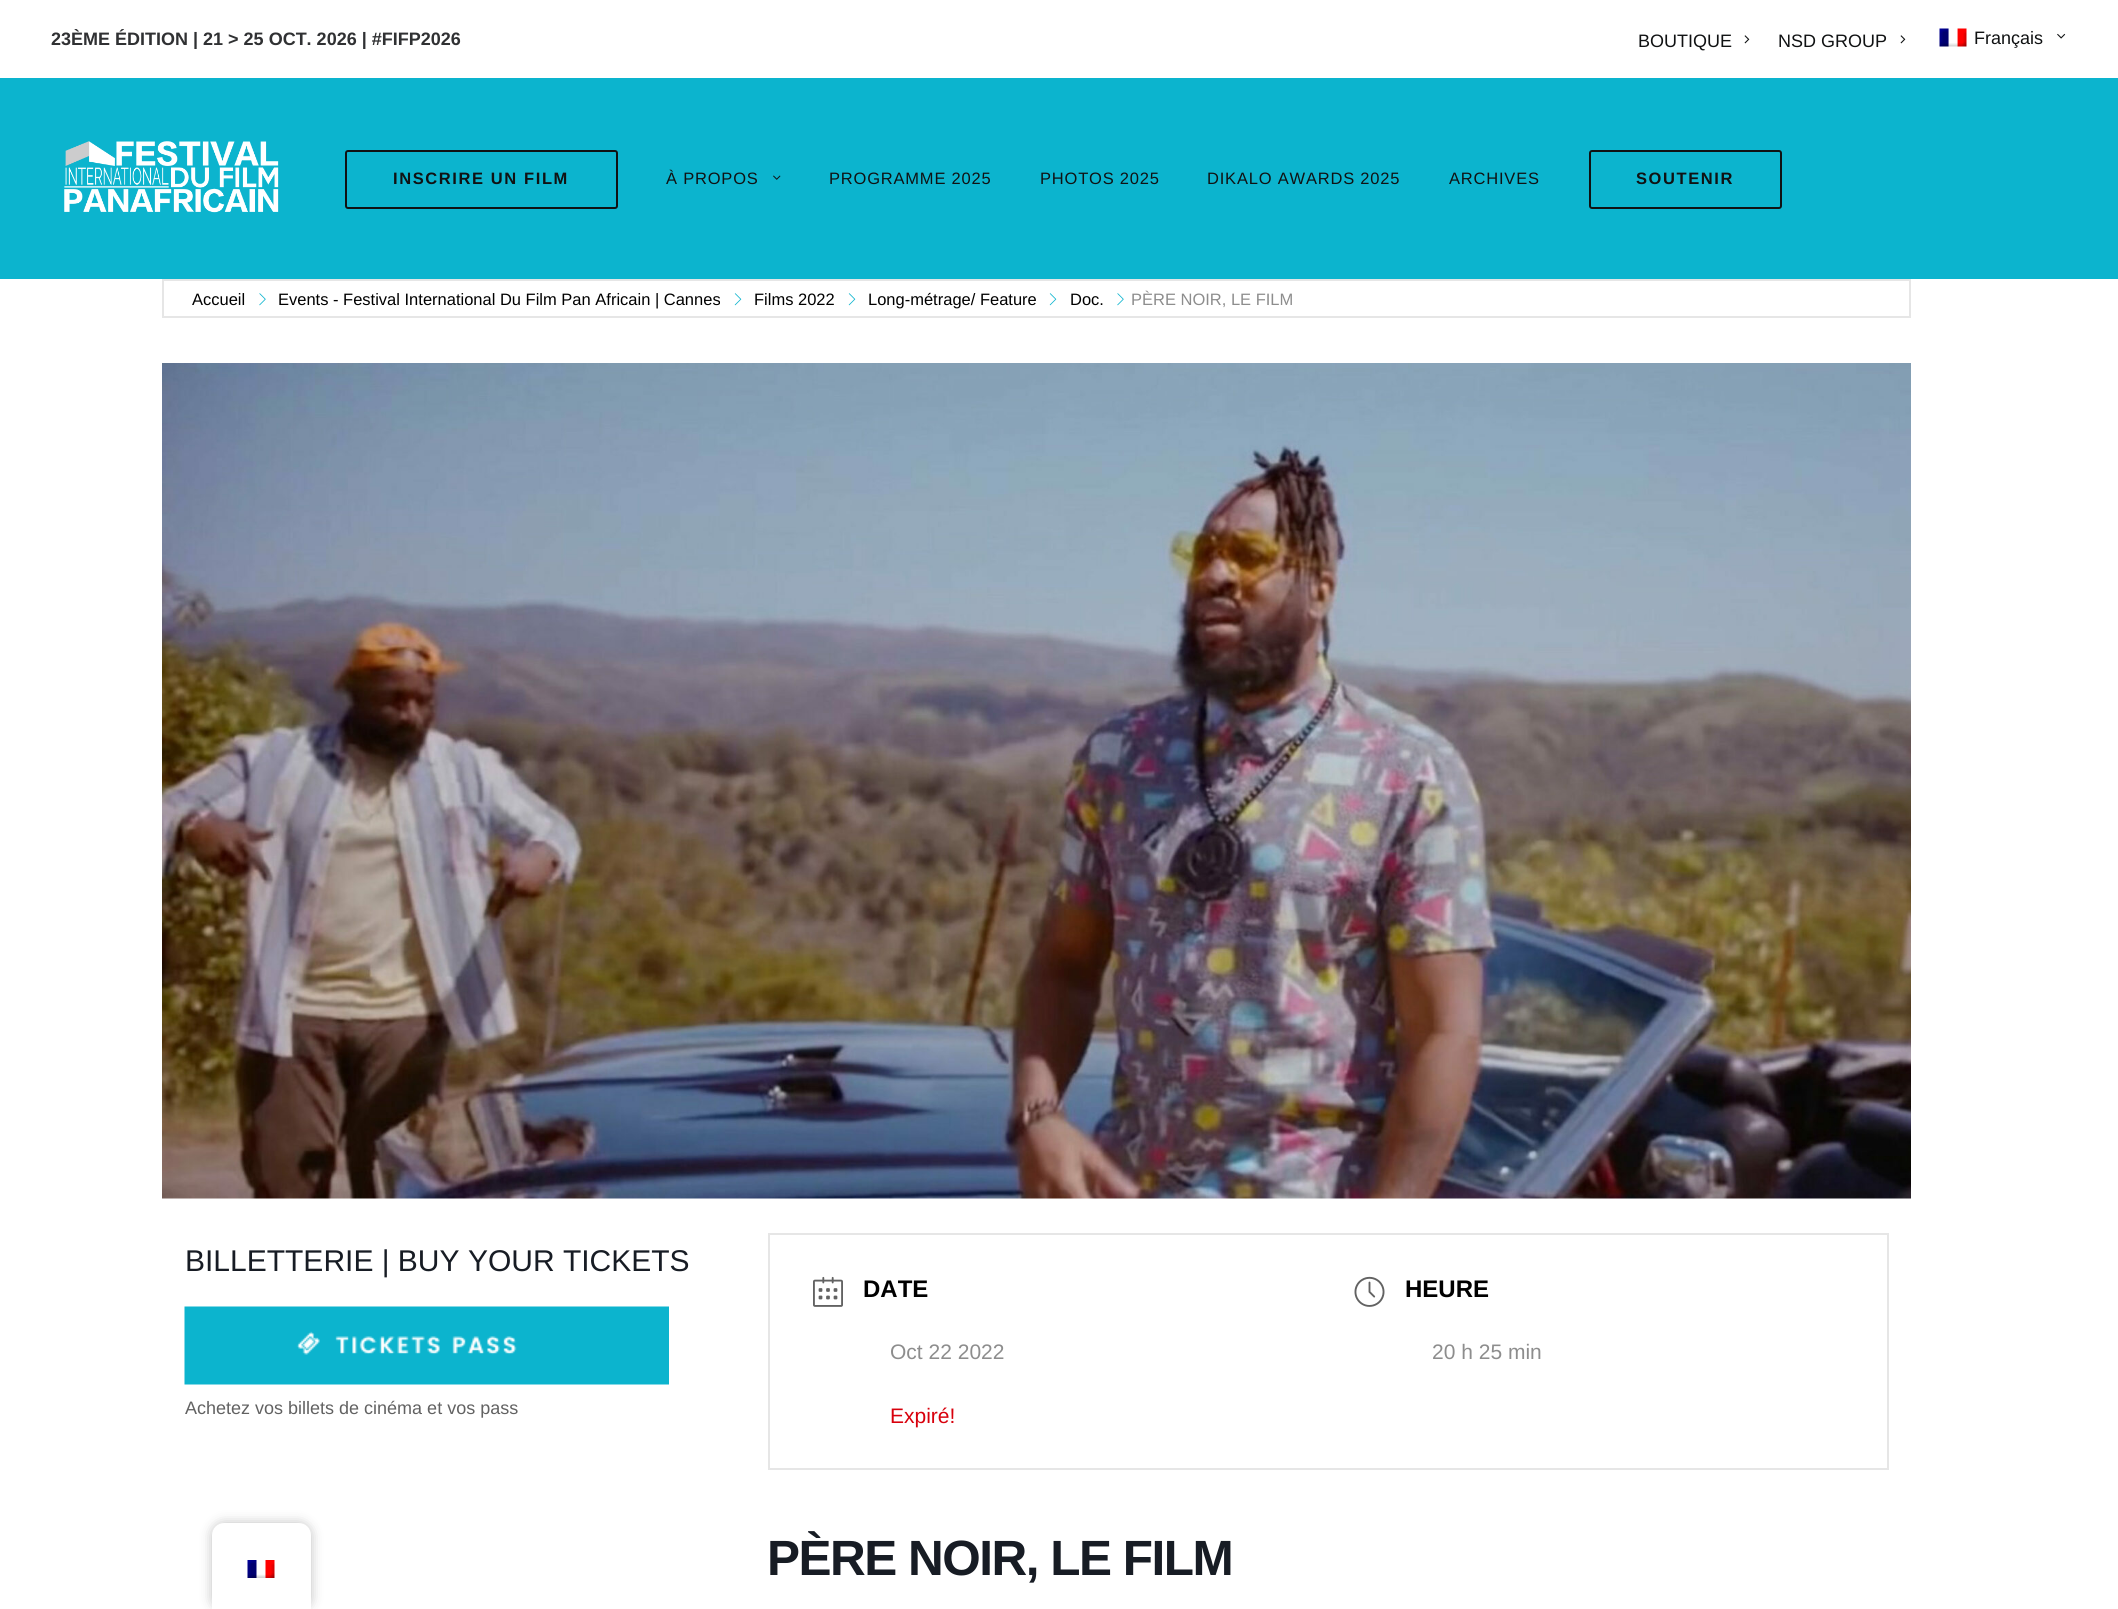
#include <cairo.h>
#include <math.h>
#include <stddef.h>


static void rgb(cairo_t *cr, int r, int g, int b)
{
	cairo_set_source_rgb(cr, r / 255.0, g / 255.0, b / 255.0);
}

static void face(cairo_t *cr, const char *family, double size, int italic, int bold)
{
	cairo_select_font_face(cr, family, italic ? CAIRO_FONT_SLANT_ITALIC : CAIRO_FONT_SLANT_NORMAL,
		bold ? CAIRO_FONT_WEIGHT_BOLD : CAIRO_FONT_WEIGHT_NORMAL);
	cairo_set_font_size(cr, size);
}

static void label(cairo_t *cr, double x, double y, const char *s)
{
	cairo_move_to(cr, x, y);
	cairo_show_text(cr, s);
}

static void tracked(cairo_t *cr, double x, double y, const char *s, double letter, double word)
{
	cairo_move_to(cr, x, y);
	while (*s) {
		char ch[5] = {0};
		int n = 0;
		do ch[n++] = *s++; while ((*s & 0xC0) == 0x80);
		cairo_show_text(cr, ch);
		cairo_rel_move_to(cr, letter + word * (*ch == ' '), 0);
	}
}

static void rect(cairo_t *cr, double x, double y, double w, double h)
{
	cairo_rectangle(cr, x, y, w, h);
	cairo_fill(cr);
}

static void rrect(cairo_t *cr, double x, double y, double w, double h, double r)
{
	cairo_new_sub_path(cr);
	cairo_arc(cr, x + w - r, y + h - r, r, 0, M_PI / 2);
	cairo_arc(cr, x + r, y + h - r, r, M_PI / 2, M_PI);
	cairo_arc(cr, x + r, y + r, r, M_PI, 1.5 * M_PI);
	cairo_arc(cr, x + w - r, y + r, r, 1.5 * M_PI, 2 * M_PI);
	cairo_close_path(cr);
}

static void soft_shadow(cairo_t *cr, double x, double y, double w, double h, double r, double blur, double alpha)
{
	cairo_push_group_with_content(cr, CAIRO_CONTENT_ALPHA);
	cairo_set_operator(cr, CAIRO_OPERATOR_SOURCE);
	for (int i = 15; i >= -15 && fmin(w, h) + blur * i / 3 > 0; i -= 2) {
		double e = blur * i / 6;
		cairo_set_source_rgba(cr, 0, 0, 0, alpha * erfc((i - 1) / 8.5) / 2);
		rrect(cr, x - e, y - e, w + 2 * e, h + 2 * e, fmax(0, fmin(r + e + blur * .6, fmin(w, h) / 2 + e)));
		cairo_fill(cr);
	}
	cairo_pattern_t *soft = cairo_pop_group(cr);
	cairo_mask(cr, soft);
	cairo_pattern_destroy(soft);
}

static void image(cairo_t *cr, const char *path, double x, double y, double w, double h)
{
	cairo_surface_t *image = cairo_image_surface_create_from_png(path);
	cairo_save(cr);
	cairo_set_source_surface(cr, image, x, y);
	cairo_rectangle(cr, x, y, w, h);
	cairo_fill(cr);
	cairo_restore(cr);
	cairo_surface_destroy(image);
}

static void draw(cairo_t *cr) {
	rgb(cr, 255, 255, 255);
	cairo_paint(cr);
	face(cr, "Liberation Sans", 18, 0, 1);
	rgb(cr, 48, 49, 51);
	label(cr, 51, 45, "23ÈME ÉDITION | 21 > 25 OCT. 2026 | #FIFP2026");
	face(cr, "Liberation Sans", 18, 0, 0);
	rgb(cr, 16, 18, 19);
	label(cr, 1638, 47, "BOUTIQUE");
	image(cr, "image0.png", 1744, 35, 6, 9);
	label(cr, 1778, 47, "NSD GROUP");
	image(cr, "image0.png", 1900, 35, 6, 9);
	image(cr, "image1.png", 1939, 28, 28, 19);
	label(cr, 1974, 44, "Français");
	image(cr, "image2.png", 2057, 33, 9, 6);
	rgb(cr, 12, 180, 206);
	rect(cr, 0, 78, 2118, 201);
	image(cr, "image3.png", 64, 141, 215, 72);
	rrect(cr, 346, 151, 271, 57, 2);
	rgb(cr, 16, 18, 19);
	cairo_stroke(cr);
	face(cr, "Liberation Sans", 16.5, 0, 1);
	tracked(cr, 393, 184, "INSCRIRE UN FILM", 1.6, 0);
	face(cr, "Liberation Sans", 16.5, 0, 0);
	tracked(cr, 666, 184, "À PROPOS", 0.8, 0);
	image(cr, "image4.png", 773, 175, 8, 5);
	tracked(cr, 829, 184, "PROGRAMME 2025", 0.8, 0);
	tracked(cr, 1040, 184, "PHOTOS 2025", 0.8, 0);
	tracked(cr, 1207, 184, "DIKALO AWARDS 2025", 0.8, 0);
	tracked(cr, 1449, 184, "ARCHIVES", 0.8, 0);
	rrect(cr, 1590, 151, 191, 57, 2);
	cairo_stroke(cr);
	face(cr, "Liberation Sans", 16.5, 0, 1);
	tracked(cr, 1636, 184, "SOUTENIR", 1.6, 0);
	cairo_rectangle(cr, 163, 280, 1747, 37);
	rgb(cr, 230, 230, 230);
	cairo_stroke(cr);
	face(cr, "Liberation Sans", 16.5, 0, 0);
	rgb(cr, 0, 0, 0);
	label(cr, 192, 305, "Accueil");
	image(cr, "image5.png", 259, 293, 7, 13);
	label(cr, 278, 305, "Events - Festival International Du Film Pan Africain | Cannes");
	image(cr, "image6.png", 734, 293, 8, 13);
	label(cr, 754, 305, "Films 2022");
	image(cr, "image6.png", 848, 293, 8, 13);
	label(cr, 868, 305, "Long-métrage/ Feature");
	image(cr, "image6.png", 1049, 293, 8, 13);
	label(cr, 1070, 305, "Doc.");
	image(cr, "image5.png", 1117, 293, 7, 13);
	rgb(cr, 141, 141, 141);
	label(cr, 1131, 305, "PÈRE NOIR, LE FILM");
	image(cr, "image7.png", 162, 363, 1749, 836);
	face(cr, "Liberation Sans", 30, 0, 0);
	rgb(cr, 23, 28, 36);
	label(cr, 185, 1271, "BILLETTERIE | BUY YOUR TICKETS");
	image(cr, "image8.png", 184, 1306, 485, 79);
	face(cr, "Liberation Sans", 18, 0, 0);
	rgb(cr, 98, 98, 98);
	label(cr, 185, 1414, "Achetez vos billets de cinéma et vos pass");
	cairo_rectangle(cr, 769, 1234, 1119, 235);
	rgb(cr, 230, 230, 230);
	cairo_stroke(cr);
	image(cr, "image9.png", 813, 1276, 30, 31);
	face(cr, "Liberation Sans", 24, 0, 1);
	rgb(cr, 0, 0, 0);
	label(cr, 863, 1297, "DATE");
	face(cr, "Liberation Sans", 21, 0, 0);
	rgb(cr, 141, 141, 141);
	label(cr, 890, 1359, "Oct 22 2022");
	rgb(cr, 216, 0, 12);
	label(cr, 890, 1423, "Expiré!");
	image(cr, "image10.png", 1354, 1276, 31, 31);
	face(cr, "Liberation Sans", 24, 0, 1);
	rgb(cr, 0, 0, 0);
	label(cr, 1405, 1297, "HEURE");
	face(cr, "Liberation Sans", 21, 0, 0);
	rgb(cr, 141, 141, 141);
	label(cr, 1432, 1359, "20 h 25 min");
	face(cr, "Liberation Sans", 49.5, 0, 1);
	rgb(cr, 23, 28, 36);
	tracked(cr, 767, 1575, "PÈRE NOIR, LE FILM", -1.5, 0);
	rgb(cr, 0, 0, 0);
	soft_shadow(cr, 212, 1523, 99, 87, 12, 6, 0.25);
	rgb(cr, 255, 255, 255);
	cairo_new_path(cr);
	cairo_move_to(cr, 224, 1523);
	cairo_line_to(cr, 299, 1523);
	cairo_curve_to(cr, 305.5, 1523, 311, 1528.5, 311, 1535);
	cairo_line_to(cr, 311, 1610);
	cairo_line_to(cr, 212, 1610);
	cairo_line_to(cr, 212, 1535);
	cairo_curve_to(cr, 212, 1528.5, 217.5, 1523, 224, 1523);
	cairo_close_path(cr);
	cairo_fill(cr);
	image(cr, "image11.png", 247, 1560, 28, 18);
}

int main(void) {
	cairo_surface_t *surface = cairo_image_surface_create(CAIRO_FORMAT_RGB24, 2118, 1609);
	cairo_t *cr = cairo_create(surface);
	cairo_font_options_t *options = cairo_font_options_create();
	cairo_font_options_set_hint_metrics(options, CAIRO_HINT_METRICS_OFF);
	cairo_font_options_set_hint_style(options, CAIRO_HINT_STYLE_NONE);
	cairo_set_font_options(cr, options);
	cairo_set_miter_limit(cr, 4);
	draw(cr);
	cairo_surface_write_to_png(surface, "render.png");
	cairo_font_options_destroy(options);
	cairo_destroy(cr);
	cairo_surface_destroy(surface);
	return 0;
}
